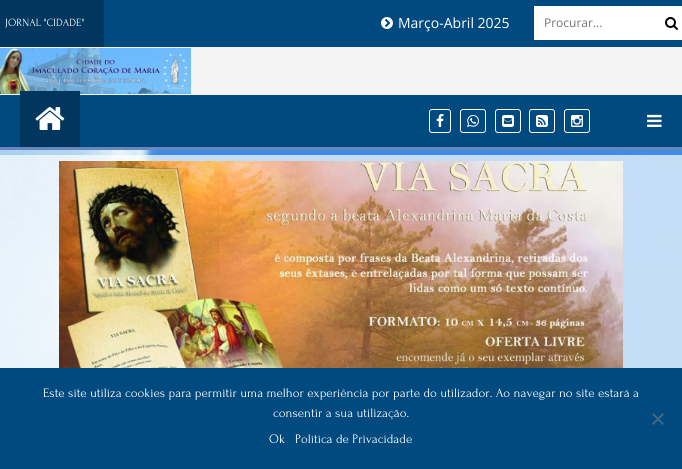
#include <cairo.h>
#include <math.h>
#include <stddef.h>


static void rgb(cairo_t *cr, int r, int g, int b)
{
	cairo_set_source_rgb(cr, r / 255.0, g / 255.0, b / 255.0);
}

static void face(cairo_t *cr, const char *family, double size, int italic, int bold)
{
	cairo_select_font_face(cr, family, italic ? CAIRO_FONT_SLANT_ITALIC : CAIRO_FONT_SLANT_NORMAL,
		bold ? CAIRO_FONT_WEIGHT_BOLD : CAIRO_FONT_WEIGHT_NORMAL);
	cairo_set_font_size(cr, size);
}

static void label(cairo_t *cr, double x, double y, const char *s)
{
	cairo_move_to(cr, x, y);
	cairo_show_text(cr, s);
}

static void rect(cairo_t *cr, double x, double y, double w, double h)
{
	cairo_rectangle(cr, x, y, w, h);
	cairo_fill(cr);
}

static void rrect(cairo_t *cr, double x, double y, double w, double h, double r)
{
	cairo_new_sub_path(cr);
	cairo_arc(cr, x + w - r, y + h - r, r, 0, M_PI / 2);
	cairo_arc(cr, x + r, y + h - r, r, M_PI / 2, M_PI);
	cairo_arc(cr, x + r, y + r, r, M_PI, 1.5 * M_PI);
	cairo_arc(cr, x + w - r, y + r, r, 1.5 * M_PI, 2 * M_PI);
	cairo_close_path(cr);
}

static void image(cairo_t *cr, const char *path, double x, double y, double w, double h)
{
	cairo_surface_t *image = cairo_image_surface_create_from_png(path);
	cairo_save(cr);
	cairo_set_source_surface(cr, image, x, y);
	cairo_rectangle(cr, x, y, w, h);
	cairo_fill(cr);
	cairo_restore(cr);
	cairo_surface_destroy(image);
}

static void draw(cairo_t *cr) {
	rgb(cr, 1, 74, 127);
	cairo_paint(cr);
	rgb(cr, 1, 55, 94);
	rect(cr, 0, 0, 104, 47);
	face(cr, "Forum", 11, 0, 0);
	rgb(cr, 255, 255, 255);
	label(cr, 5, 26, "JORNAL \"CIDADE\"");
	image(cr, "image0.png", 381, 17, 12, 12);
	face(cr, "Open Sans", 14, 0, 0);
	label(cr, 398, 28, "Março-Abril 2025");
	rect(cr, 534, 6, 148, 34);
	face(cr, "Open Sans", 12, 0, 0);
	rgb(cr, 117, 117, 117);
	label(cr, 544, 27, "Procurar...");
	image(cr, "image1.png", 665, 17, 13, 13);
	rgb(cr, 244, 244, 244);
	rect(cr, 0, 47, 682, 48);
	image(cr, "image2.png", 0, 48, 191, 46);
	rgb(cr, 106, 135, 189);
	rect(cr, 0, 147, 682, 3);
	rgb(cr, 1, 55, 94);
	rect(cr, 20, 91, 60, 56);
	image(cr, "image3.png", 35, 107, 30, 23);
	rrect(cr, 429.5, 109.5, 21, 23, 2.5);
	rgb(cr, 247, 247, 247);
	cairo_set_line_width(cr, 1);
	cairo_stroke(cr);
	image(cr, "image4.png", 436, 114, 8, 13);
	rrect(cr, 460.5, 109.5, 25, 23, 2.5);
	cairo_stroke(cr);
	image(cr, "image5.png", 467, 115, 12, 12);
	rrect(cr, 495.5, 109.5, 25, 23, 2.5);
	cairo_stroke(cr);
	image(cr, "image6.png", 502, 115, 12, 12);
	rrect(cr, 529.5, 109.5, 25, 23, 2.5);
	cairo_stroke(cr);
	image(cr, "image7.png", 536, 115, 12, 12);
	rrect(cr, 564.5, 109.5, 25, 23, 2.5);
	cairo_stroke(cr);
	image(cr, "image8.png", 571, 115, 12, 12);
	image(cr, "image9.png", 647, 114, 15, 13);
	image(cr, "image10.png", 0, 150, 682, 218);
	image(cr, "image11.png", 59, 161, 564, 207);
	face(cr, "Forum", 13, 0, 0);
	rgb(cr, 255, 255, 255);
	label(cr, 43, 397, "Este site utiliza cookies para permitir uma melhor experiência por parte do utilizador. Ao navegar no site estará a");
	label(cr, 273, 417, "consentir a sua utilização.");
	rgb(cr, 65, 101, 128);
	cairo_new_path(cr);
	cairo_move_to(cr, 662.5, 413);
	cairo_line_to(cr, 664, 414.5);
	cairo_line_to(cr, 653.5, 425);
	cairo_line_to(cr, 652, 423.5);
	cairo_close_path(cr);
	cairo_fill(cr);
	cairo_new_path(cr);
	cairo_move_to(cr, 652, 414.5);
	cairo_line_to(cr, 653.5, 413);
	cairo_line_to(cr, 664, 423.5);
	cairo_line_to(cr, 662.5, 425);
	cairo_close_path(cr);
	cairo_fill(cr);
	rgb(cr, 255, 255, 255);
	label(cr, 269, 443, "Ok");
	label(cr, 295, 443, "Política de Privacidade");
}

int main(void) {
	cairo_surface_t *surface = cairo_image_surface_create(CAIRO_FORMAT_RGB24, 682, 469);
	cairo_t *cr = cairo_create(surface);
	cairo_font_options_t *options = cairo_font_options_create();
	cairo_font_options_set_hint_metrics(options, CAIRO_HINT_METRICS_OFF);
	cairo_font_options_set_hint_style(options, CAIRO_HINT_STYLE_NONE);
	cairo_set_font_options(cr, options);
	cairo_set_miter_limit(cr, 4);
	draw(cr);
	cairo_surface_write_to_png(surface, "render.png");
	cairo_font_options_destroy(options);
	cairo_destroy(cr);
	cairo_surface_destroy(surface);
	return 0;
}
